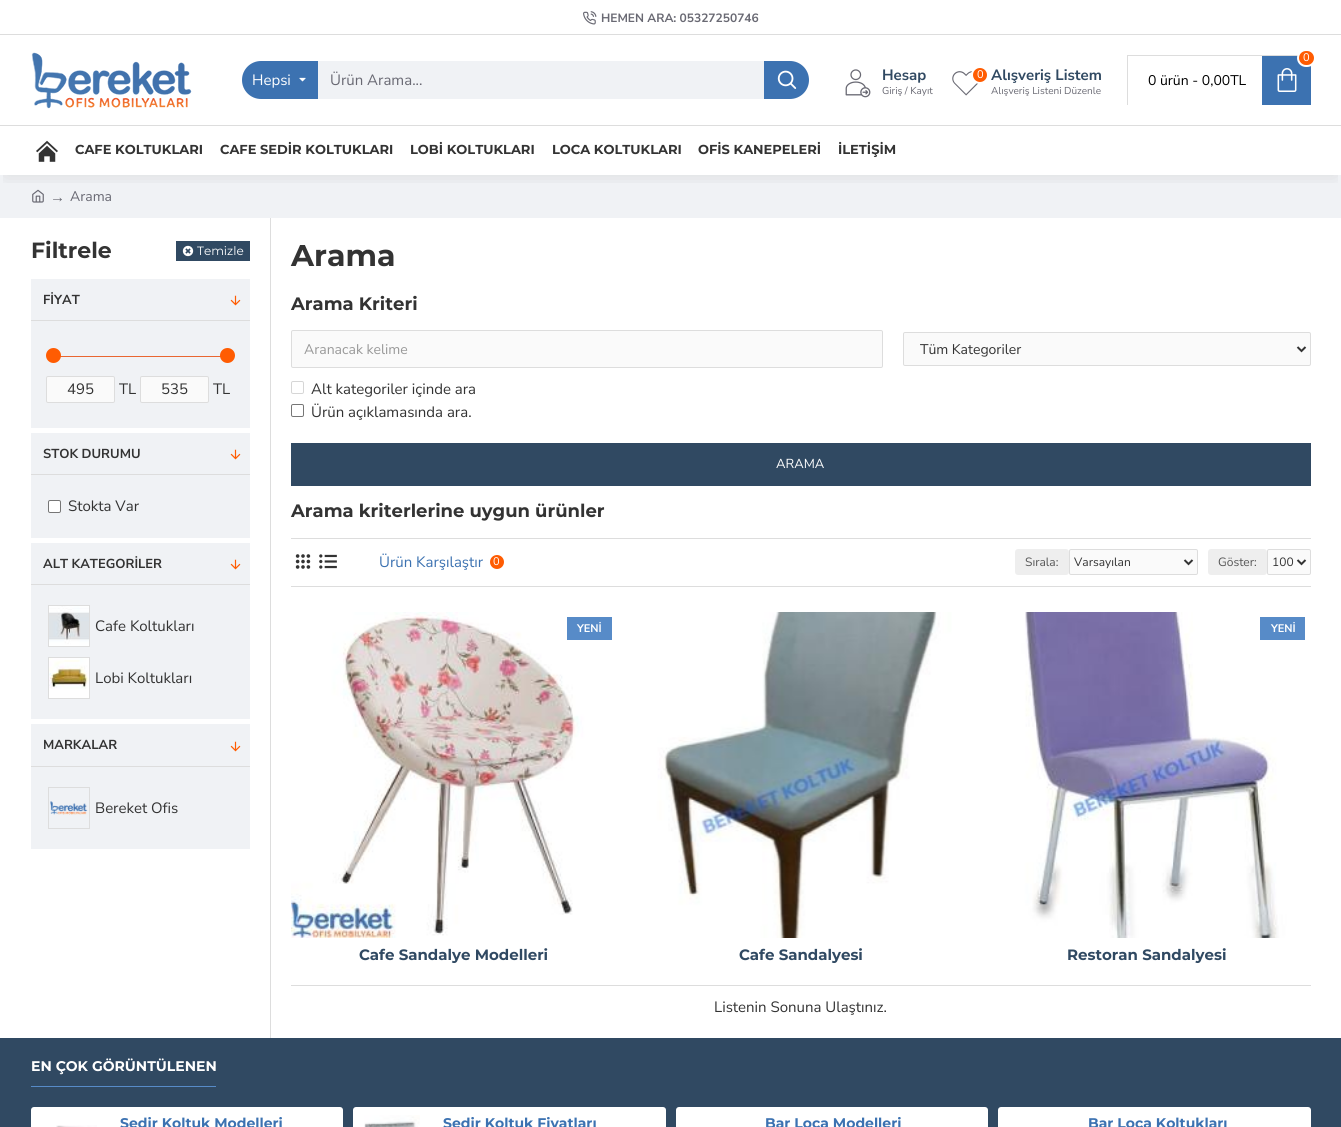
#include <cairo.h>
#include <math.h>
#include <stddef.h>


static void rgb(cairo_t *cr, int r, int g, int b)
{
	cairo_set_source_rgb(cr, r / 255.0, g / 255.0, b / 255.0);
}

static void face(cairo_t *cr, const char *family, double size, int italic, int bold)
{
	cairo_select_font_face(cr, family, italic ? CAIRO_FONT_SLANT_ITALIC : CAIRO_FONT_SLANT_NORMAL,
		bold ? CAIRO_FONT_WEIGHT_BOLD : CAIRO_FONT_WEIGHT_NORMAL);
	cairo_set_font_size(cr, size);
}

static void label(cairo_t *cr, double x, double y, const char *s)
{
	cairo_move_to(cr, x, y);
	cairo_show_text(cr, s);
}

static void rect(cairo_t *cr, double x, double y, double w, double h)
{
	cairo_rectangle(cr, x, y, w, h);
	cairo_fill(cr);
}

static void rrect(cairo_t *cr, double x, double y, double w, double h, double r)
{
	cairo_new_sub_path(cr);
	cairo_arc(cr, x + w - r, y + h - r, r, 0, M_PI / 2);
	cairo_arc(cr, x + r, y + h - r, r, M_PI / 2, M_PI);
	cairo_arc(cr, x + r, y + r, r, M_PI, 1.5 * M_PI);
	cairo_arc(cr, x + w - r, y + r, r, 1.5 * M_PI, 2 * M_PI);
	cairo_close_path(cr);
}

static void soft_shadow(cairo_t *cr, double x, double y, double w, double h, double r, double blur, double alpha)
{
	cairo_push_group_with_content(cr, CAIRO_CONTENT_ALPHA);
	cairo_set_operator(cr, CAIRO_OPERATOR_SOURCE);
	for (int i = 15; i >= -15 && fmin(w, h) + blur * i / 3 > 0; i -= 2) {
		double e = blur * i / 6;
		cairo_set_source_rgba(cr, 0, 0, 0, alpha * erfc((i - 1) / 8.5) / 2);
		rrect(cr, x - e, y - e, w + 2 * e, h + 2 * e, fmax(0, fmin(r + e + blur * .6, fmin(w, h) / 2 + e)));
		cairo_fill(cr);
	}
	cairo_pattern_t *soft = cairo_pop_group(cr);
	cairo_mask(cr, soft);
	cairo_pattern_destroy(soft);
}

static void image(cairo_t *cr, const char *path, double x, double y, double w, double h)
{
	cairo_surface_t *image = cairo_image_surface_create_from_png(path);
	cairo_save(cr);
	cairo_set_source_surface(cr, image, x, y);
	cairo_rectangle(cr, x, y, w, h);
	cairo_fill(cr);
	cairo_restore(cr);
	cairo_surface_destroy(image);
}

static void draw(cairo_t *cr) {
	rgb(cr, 255, 255, 255);
	cairo_paint(cr);
	rgb(cr, 240, 242, 245);
	rect(cr, 0, 175, 1341, 43);
	image(cr, "image8.png", 32, 189, 12, 14);
	cairo_save(cr);
	cairo_rectangle(cr, 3, 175, 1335, 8);
	cairo_clip(cr);
	rgb(cr, 0, 0, 0);
	soft_shadow(cr, 5, 10, 1331, 165, 0, 10, 0.1);
	cairo_restore(cr);
	image(cr, "image0.png", 583, 11, 14, 14);
	face(cr, "Nunito Sans", 12, 0, 1);
	rgb(cr, 105, 105, 115);
	label(cr, 601, 22, "HEMEN ARA: 05327250746");
	image(cr, "image1.png", 31, 52, 161, 57);
	rgb(cr, 60, 114, 177);
	cairo_new_path(cr);
	cairo_move_to(cr, 261, 61);
	cairo_line_to(cr, 318, 61);
	cairo_line_to(cr, 318, 99);
	cairo_line_to(cr, 261, 99);
	cairo_curve_to(cr, 250.5, 99, 242, 90.5, 242, 80);
	cairo_curve_to(cr, 242, 69.5, 250.5, 61, 261, 61);
	cairo_close_path(cr);
	cairo_fill(cr);
	face(cr, "Nunito Sans", 15, 0, 0);
	rgb(cr, 255, 255, 255);
	label(cr, 252, 85, "Hepsi");
	image(cr, "image2.png", 299, 77, 7, 5);
	rgb(cr, 240, 242, 245);
	rect(cr, 318, 61, 446, 38);
	rgb(cr, 105, 105, 115);
	label(cr, 330, 85, "Ürün Arama...");
	rgb(cr, 60, 114, 177);
	cairo_new_path(cr);
	cairo_move_to(cr, 764, 61);
	cairo_line_to(cr, 790, 61);
	cairo_curve_to(cr, 800.5, 61, 809, 69.5, 809, 80);
	cairo_curve_to(cr, 809, 90.5, 800.5, 99, 790, 99);
	cairo_line_to(cr, 764, 99);
	cairo_close_path(cr);
	cairo_fill(cr);
	image(cr, "image3.png", 777, 70, 20, 19);
	image(cr, "image4.png", 845, 69, 26, 29);
	face(cr, "Nunito Sans", 15, 0, 1);
	rgb(cr, 48, 73, 98);
	label(cr, 882, 80, "Hesap");
	face(cr, "Nunito Sans", 10, 0, 0);
	rgb(cr, 105, 105, 115);
	label(cr, 882, 94, "Giriş / Kayıt");
	image(cr, "image5.png", 952, 71, 27, 25);
	rgb(cr, 255, 92, 2);
	cairo_arc(cr, 980, 75, 8, 0, 2 * M_PI);
	cairo_fill_preserve(cr);
	rgb(cr, 255, 255, 255);
	cairo_stroke(cr);
	face(cr, "Nunito Sans", 11, 0, 0);
	label(cr, 977, 78, "0");
	face(cr, "Nunito Sans", 15, 0, 1);
	rgb(cr, 48, 73, 98);
	label(cr, 991, 80, "Alışveriş Listem");
	face(cr, "Nunito Sans", 10, 0, 0);
	rgb(cr, 105, 105, 115);
	label(cr, 991, 94, "Alışveriş Listeni Düzenle");
	rgb(cr, 221, 221, 221);
	rect(cr, 1127, 55, 171, 1);
	rect(cr, 1127, 55, 1, 50);
	rgb(cr, 60, 114, 177);
	rect(cr, 1262, 56, 49, 49);
	rgb(cr, 255, 92, 2);
	rrect(cr, 1298, 50, 17, 16, 8);
	cairo_fill_preserve(cr);
	rgb(cr, 255, 255, 255);
	cairo_stroke(cr);
	face(cr, "Nunito Sans", 11, 0, 0);
	label(cr, 1303, 61, "0");
	face(cr, "Nunito Sans", 14, 0, 0);
	rgb(cr, 0, 0, 0);
	label(cr, 1148, 85, "0 ürün - 0,00TL");
	image(cr, "image6.png", 1277, 68, 20, 24);
	rgb(cr, 221, 221, 221);
	rect(cr, 0, 125, 1341, 1);
	image(cr, "image7.png", 36, 140, 22, 22);
	face(cr, "Montserrat", 13, 0, 1);
	rgb(cr, 51, 51, 51);
	label(cr, 75, 154, "CAFE KOLTUKLARI");
	label(cr, 220, 154, "CAFE SEDİR KOLTUKLARI");
	label(cr, 410, 154, "LOBİ KOLTUKLARI");
	label(cr, 552, 154, "LOCA KOLTUKLARI");
	label(cr, 698, 154, "OFİS KANEPELERİ");
	label(cr, 838, 154, "İLETİŞİM");
	rgb(cr, 221, 221, 221);
	rect(cr, 0, 34, 1341, 1);
	face(cr, "Liberation Serif", 15, 0, 0);
	rgb(cr, 105, 105, 115);
	label(cr, 50, 202, "→");
	face(cr, "Nunito Sans", 14, 0, 0);
	label(cr, 70, 201, "Arama");
	rgb(cr, 221, 221, 221);
	rect(cr, 270, 218, 1, 820);
	face(cr, "Montserrat", 22, 0, 1);
	rgb(cr, 51, 51, 51);
	label(cr, 31, 258, "Filtrele");
	rgb(cr, 48, 73, 98);
	rect(cr, 176, 241, 74, 20);
	image(cr, "image9.png", 182, 245, 12, 12);
	face(cr, "Montserrat", 12, 0, 0);
	rgb(cr, 255, 255, 255);
	label(cr, 197, 255, "Temizle");
	rgb(cr, 240, 242, 245);
	rect(cr, 31, 279, 219, 41);
	face(cr, "Nunito Sans", 13, 0, 1);
	rgb(cr, 51, 51, 51);
	label(cr, 43, 304, "FİYAT");
	image(cr, "image10.png", 230, 295, 11, 11);
	rgb(cr, 240, 242, 245);
	rect(cr, 31, 321, 219, 107);
	rgb(cr, 221, 221, 221);
	rect(cr, 31, 320, 219, 1);
	rgb(cr, 233, 102, 49);
	cairo_new_path(cr);
	cairo_move_to(cr, 58, 356);
	cairo_line_to(cr, 222, 356);
	cairo_line_to(cr, 227, 356);
	cairo_line_to(cr, 222, 357);
	cairo_line_to(cr, 58, 357);
	cairo_line_to(cr, 53, 356);
	cairo_close_path(cr);
	cairo_fill(cr);
	rgb(cr, 255, 92, 2);
	cairo_arc(cr, 53.5, 355.5, 7.5, 0, 2 * M_PI);
	cairo_fill(cr);
	cairo_arc(cr, 227.5, 355.5, 7.5, 0, 2 * M_PI);
	cairo_fill(cr);
	rgb(cr, 250, 250, 250);
	rrect(cr, 46.5, 376.5, 68, 26, 1.5);
	cairo_fill_preserve(cr);
	rgb(cr, 221, 221, 221);
	cairo_set_line_width(cr, 1);
	cairo_stroke(cr);
	face(cr, "Nunito Sans", 15, 0, 0);
	rgb(cr, 51, 51, 51);
	label(cr, 67, 394, "495");
	label(cr, 119, 394, "TL");
	rgb(cr, 250, 250, 250);
	rrect(cr, 140.5, 376.5, 68, 26, 1.5);
	cairo_fill_preserve(cr);
	rgb(cr, 221, 221, 221);
	cairo_stroke(cr);
	rgb(cr, 51, 51, 51);
	label(cr, 161, 394, "535");
	label(cr, 213, 394, "TL");
	rgb(cr, 240, 242, 245);
	rect(cr, 31, 433, 219, 41);
	face(cr, "Nunito Sans", 13, 0, 1);
	rgb(cr, 51, 51, 51);
	label(cr, 43, 458, "STOK DURUMU");
	image(cr, "image10.png", 230, 449, 11, 11);
	rgb(cr, 240, 242, 245);
	rect(cr, 31, 475, 219, 63);
	rgb(cr, 221, 221, 221);
	rect(cr, 31, 474, 219, 1);
	rgb(cr, 255, 255, 255);
	rrect(cr, 48.5, 500.5, 12, 12, 1.5);
	cairo_fill_preserve(cr);
	rgb(cr, 118, 118, 118);
	cairo_stroke(cr);
	face(cr, "Nunito Sans", 15, 0, 0);
	rgb(cr, 51, 51, 51);
	label(cr, 68, 511, "Stokta Var");
	rgb(cr, 240, 242, 245);
	rect(cr, 31, 543, 219, 41);
	face(cr, "Nunito Sans", 13, 0, 1);
	rgb(cr, 51, 51, 51);
	label(cr, 43, 568, "ALT KATEGORİLER");
	image(cr, "image10.png", 230, 559, 11, 11);
	rgb(cr, 240, 242, 245);
	rect(cr, 31, 585, 219, 134);
	rgb(cr, 221, 221, 221);
	rect(cr, 31, 584, 219, 1);
	cairo_rectangle(cr, 48.5, 605.5, 41, 41);
	cairo_stroke(cr);
	image(cr, "image11.png", 49, 606, 40, 40);
	face(cr, "Nunito Sans", 15, 0, 0);
	rgb(cr, 51, 51, 51);
	label(cr, 95, 631, "Cafe Koltukları");
	cairo_rectangle(cr, 48.5, 657.5, 41, 41);
	rgb(cr, 221, 221, 221);
	cairo_stroke(cr);
	image(cr, "image12.png", 49, 658, 40, 40);
	rgb(cr, 51, 51, 51);
	label(cr, 95, 683, "Lobi Koltukları");
	rgb(cr, 240, 242, 245);
	rect(cr, 31, 724, 219, 42);
	face(cr, "Nunito Sans", 13, 0, 1);
	rgb(cr, 51, 51, 51);
	label(cr, 43, 749, "MARKALAR");
	image(cr, "image10.png", 230, 741, 11, 11);
	rgb(cr, 240, 242, 245);
	rect(cr, 31, 767, 219, 82);
	rgb(cr, 221, 221, 221);
	rect(cr, 31, 766, 219, 1);
	cairo_rectangle(cr, 48.5, 787.5, 41, 41);
	cairo_stroke(cr);
	image(cr, "image13.png", 50, 801, 38, 14);
	face(cr, "Nunito Sans", 15, 0, 0);
	rgb(cr, 51, 51, 51);
	label(cr, 95, 813, "Bereket Ofis");
	face(cr, "Montserrat", 30, 0, 1);
	label(cr, 291, 266, "Arama");
	face(cr, "Montserrat", 18, 0, 1);
	label(cr, 291, 310, "Arama Kriteri");
	rgb(cr, 250, 250, 250);
	rrect(cr, 291.5, 330.5, 591, 37, 1.5);
	cairo_fill_preserve(cr);
	rgb(cr, 221, 221, 221);
	cairo_stroke(cr);
	face(cr, "Nunito Sans", 14, 0, 0);
	rgb(cr, 153, 153, 153);
	label(cr, 304, 354, "Aranacak kelime");
	rgb(cr, 250, 250, 250);
	rrect(cr, 903.5, 332.5, 407, 33, 1.5);
	cairo_fill_preserve(cr);
	rgb(cr, 221, 221, 221);
	cairo_stroke(cr);
	cairo_new_path(cr);
	cairo_move_to(cr, 1297.5, 347);
	cairo_line_to(cr, 1301.5, 351);
	cairo_line_to(cr, 1305.5, 347);
	rgb(cr, 51, 51, 51);
	cairo_set_line_width(cr, 2);
	cairo_stroke(cr);
	label(cr, 920, 354, "Tüm Kategoriler");
	rrect(cr, 291.5, 381.5, 12, 12, 1.5);
	rgb(cr, 214, 214, 214);
	cairo_set_line_width(cr, 1);
	cairo_stroke(cr);
	face(cr, "Nunito Sans", 15, 0, 0);
	rgb(cr, 51, 51, 51);
	label(cr, 311, 394, "Alt kategoriler içinde ara");
	rrect(cr, 291.5, 404.5, 12, 12, 1.5);
	rgb(cr, 118, 118, 118);
	cairo_stroke(cr);
	rgb(cr, 51, 51, 51);
	label(cr, 311, 417, "Ürün açıklamasında ara.");
	rgb(cr, 48, 73, 98);
	rect(cr, 291, 443, 1020, 43);
	face(cr, "Nunito Sans", 13, 0, 0);
	rgb(cr, 255, 255, 255);
	label(cr, 776, 468, "ARAMA");
	face(cr, "Montserrat", 18, 0, 1);
	rgb(cr, 51, 51, 51);
	label(cr, 291, 517, "Arama kriterlerine uygun ürünler");
	rgb(cr, 221, 221, 221);
	rect(cr, 291, 538, 1020, 1);
	rect(cr, 291, 586, 1020, 1);
	image(cr, "image14.png", 295, 554, 16, 15);
	image(cr, "image15.png", 319, 554, 18, 15);
	face(cr, "Nunito Sans", 15, 0, 0);
	rgb(cr, 60, 114, 177);
	label(cr, 379, 567, "Ürün Karşılaştır");
	rgb(cr, 255, 92, 2);
	cairo_new_path(cr);
	cairo_arc(cr, 497, 562, 8, 0, 2 * M_PI);
	cairo_fill_preserve(cr);
	rgb(cr, 255, 255, 255);
	cairo_set_line_width(cr, 2);
	cairo_stroke(cr);
	face(cr, "Nunito Sans", 11, 0, 0);
	label(cr, 493, 565, "0");
	rgb(cr, 238, 238, 238);
	rrect(cr, 1015, 549, 54, 26, 3);
	cairo_fill(cr);
	face(cr, "Nunito Sans", 12, 0, 0);
	rgb(cr, 85, 85, 85);
	label(cr, 1025, 566, "Sırala:");
	rgb(cr, 250, 250, 250);
	rrect(cr, 1069.5, 549.5, 128, 25, 1.5);
	cairo_fill_preserve(cr);
	rgb(cr, 221, 221, 221);
	cairo_set_line_width(cr, 1);
	cairo_stroke(cr);
	cairo_new_path(cr);
	cairo_move_to(cr, 1184.5, 560);
	cairo_line_to(cr, 1188.5, 564);
	cairo_line_to(cr, 1192.5, 560);
	rgb(cr, 51, 51, 51);
	cairo_set_line_width(cr, 2);
	cairo_stroke(cr);
	label(cr, 1074, 566, "Varsayılan");
	rgb(cr, 238, 238, 238);
	rrect(cr, 1208, 549, 59, 26, 3);
	cairo_fill(cr);
	rgb(cr, 85, 85, 85);
	label(cr, 1218, 566, "Göster:");
	rgb(cr, 250, 250, 250);
	rrect(cr, 1267.5, 549.5, 43, 25, 1.5);
	cairo_fill_preserve(cr);
	rgb(cr, 221, 221, 221);
	cairo_set_line_width(cr, 1);
	cairo_stroke(cr);
	cairo_new_path(cr);
	cairo_move_to(cr, 1297.5, 560);
	cairo_line_to(cr, 1301.5, 564);
	cairo_line_to(cr, 1305.5, 560);
	rgb(cr, 51, 51, 51);
	cairo_set_line_width(cr, 2);
	cairo_stroke(cr);
	label(cr, 1272, 566, "100");
	image(cr, "image16.png", 291, 612, 326, 326);
	rgb(cr, 87, 139, 200);
	rect(cr, 567, 617, 45, 23);
	face(cr, "Nunito Sans", 11, 0, 1);
	rgb(cr, 255, 255, 255);
	label(cr, 577, 632, "YENİ");
	face(cr, "Montserrat", 15, 0, 1);
	rgb(cr, 48, 73, 98);
	label(cr, 359, 960, "Cafe Sandalye Modelleri");
	image(cr, "image17.png", 637, 612, 327, 326);
	label(cr, 739, 960, "Cafe Sandalyesi");
	image(cr, "image18.png", 984, 612, 326, 326);
	rgb(cr, 87, 139, 200);
	rect(cr, 1260, 617, 45, 23);
	face(cr, "Nunito Sans", 11, 0, 1);
	rgb(cr, 255, 255, 255);
	label(cr, 1271, 632, "YENİ");
	face(cr, "Montserrat", 15, 0, 1);
	rgb(cr, 48, 73, 98);
	label(cr, 1067, 960, "Restoran Sandalyesi");
	rgb(cr, 221, 221, 221);
	rect(cr, 291, 985, 1020, 1);
	face(cr, "Nunito Sans", 15, 0, 0);
	rgb(cr, 51, 51, 51);
	label(cr, 714, 1012, "Listenin Sonuna Ulaştınız.");
	rgb(cr, 48, 73, 98);
	rect(cr, 0, 1038, 1341, 89);
	rgb(cr, 87, 139, 200);
	rect(cr, 31, 1086, 185, 1);
	face(cr, "Montserrat", 14, 0, 1);
	rgb(cr, 255, 255, 255);
	label(cr, 31, 1071, "EN ÇOK GÖRÜNTÜLENEN");
	rrect(cr, 31, 1107, 312, 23, 3);
	cairo_fill(cr);
	image(cr, "image19.png", 56, 1125, 41, 2);
	rgb(cr, 60, 114, 177);
	label(cr, 120, 1128, "Sedir Koltuk Modelleri");
	rgb(cr, 255, 255, 255);
	rrect(cr, 353, 1107, 313, 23, 3);
	cairo_fill(cr);
	image(cr, "image20.png", 364, 1115, 56, 12);
	rgb(cr, 60, 114, 177);
	label(cr, 443, 1128, "Sedir Koltuk Fiyatları");
	rgb(cr, 255, 255, 255);
	rrect(cr, 676, 1107, 312, 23, 3);
	cairo_fill(cr);
	rgb(cr, 60, 114, 177);
	label(cr, 765, 1128, "Bar Loca Modelleri");
	rgb(cr, 255, 255, 255);
	rrect(cr, 998, 1107, 313, 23, 3);
	cairo_fill(cr);
	rgb(cr, 60, 114, 177);
	label(cr, 1088, 1128, "Bar Loca Koltukları");
}

int main(void) {
	cairo_surface_t *surface = cairo_image_surface_create(CAIRO_FORMAT_RGB24, 1341, 1127);
	cairo_t *cr = cairo_create(surface);
	cairo_font_options_t *options = cairo_font_options_create();
	cairo_font_options_set_hint_metrics(options, CAIRO_HINT_METRICS_OFF);
	cairo_font_options_set_hint_style(options, CAIRO_HINT_STYLE_NONE);
	cairo_set_font_options(cr, options);
	cairo_set_miter_limit(cr, 4);
	draw(cr);
	cairo_surface_write_to_png(surface, "render.png");
	cairo_font_options_destroy(options);
	cairo_destroy(cr);
	cairo_surface_destroy(surface);
	return 0;
}
